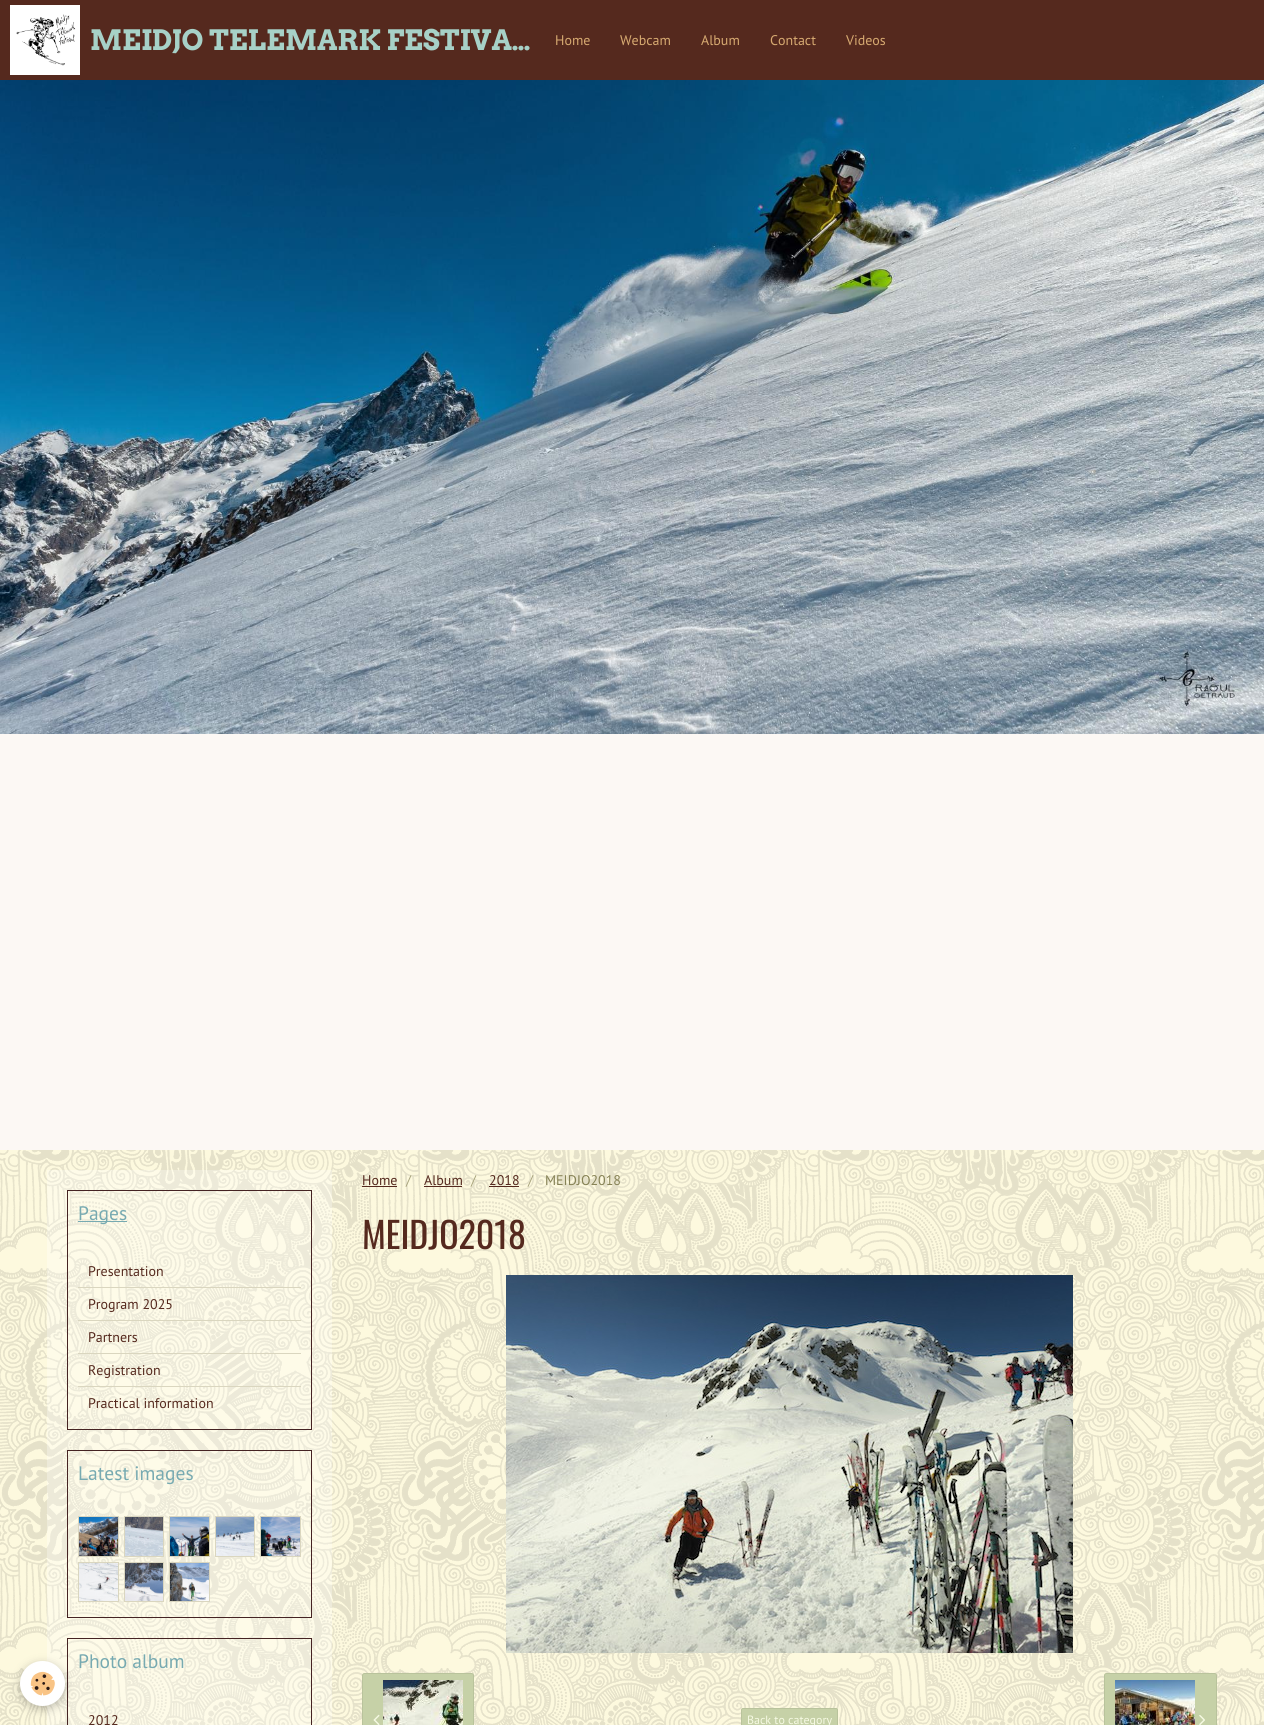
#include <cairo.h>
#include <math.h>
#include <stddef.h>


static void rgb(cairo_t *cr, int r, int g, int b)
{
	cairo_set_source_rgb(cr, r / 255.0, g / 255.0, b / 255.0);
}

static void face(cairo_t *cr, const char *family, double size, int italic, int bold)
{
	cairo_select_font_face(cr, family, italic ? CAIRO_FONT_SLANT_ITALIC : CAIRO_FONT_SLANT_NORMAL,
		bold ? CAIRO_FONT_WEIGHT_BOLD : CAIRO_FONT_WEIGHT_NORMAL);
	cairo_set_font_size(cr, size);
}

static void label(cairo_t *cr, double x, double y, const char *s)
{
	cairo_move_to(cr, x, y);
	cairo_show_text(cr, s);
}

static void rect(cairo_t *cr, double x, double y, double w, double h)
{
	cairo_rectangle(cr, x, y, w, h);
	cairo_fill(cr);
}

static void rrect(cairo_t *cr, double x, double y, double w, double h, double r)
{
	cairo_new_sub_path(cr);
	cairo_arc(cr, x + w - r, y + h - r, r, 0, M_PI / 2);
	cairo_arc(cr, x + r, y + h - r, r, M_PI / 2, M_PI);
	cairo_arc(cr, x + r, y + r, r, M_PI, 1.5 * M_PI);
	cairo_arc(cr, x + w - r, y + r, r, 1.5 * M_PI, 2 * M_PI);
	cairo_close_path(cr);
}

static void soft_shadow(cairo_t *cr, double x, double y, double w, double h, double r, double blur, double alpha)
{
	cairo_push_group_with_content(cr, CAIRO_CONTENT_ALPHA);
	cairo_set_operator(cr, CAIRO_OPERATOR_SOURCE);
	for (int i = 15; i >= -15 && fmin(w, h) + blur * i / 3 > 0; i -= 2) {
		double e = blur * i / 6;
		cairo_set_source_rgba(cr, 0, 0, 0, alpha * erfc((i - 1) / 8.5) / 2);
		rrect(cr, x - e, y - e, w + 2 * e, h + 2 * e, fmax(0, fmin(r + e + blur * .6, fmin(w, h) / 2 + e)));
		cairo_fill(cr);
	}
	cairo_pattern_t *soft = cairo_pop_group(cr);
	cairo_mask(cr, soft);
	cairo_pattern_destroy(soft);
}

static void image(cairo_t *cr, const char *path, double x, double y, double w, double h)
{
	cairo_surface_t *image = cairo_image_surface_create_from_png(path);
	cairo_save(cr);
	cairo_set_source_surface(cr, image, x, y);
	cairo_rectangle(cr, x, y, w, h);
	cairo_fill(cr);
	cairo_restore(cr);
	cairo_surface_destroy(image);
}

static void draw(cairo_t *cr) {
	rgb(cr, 255, 251, 224);
	cairo_paint(cr);
	image(cr, "image0.png", 0, 1150, 1264, 575);
	rgb(cr, 85, 41, 30);
	rect(cr, 0, 0, 1264, 80);
	image(cr, "image1.png", 10, 5, 70, 70);
	face(cr, "Arvo", 28, 0, 1);
	rgb(cr, 167, 209, 199);
	label(cr, 90, 50, "MEIDJO TELEMARK FESTIVA…");
	face(cr, "PT Sans", 14, 0, 0);
	rgb(cr, 215, 170, 113);
	label(cr, 555, 45, "Home");
	label(cr, 620, 45, "Webcam");
	label(cr, 701, 45, "Album");
	label(cr, 770, 45, "Contact");
	label(cr, 846, 45, "Videos");
	rgb(cr, 252, 248, 244);
	rect(cr, 0, 734, 1264, 416);
	image(cr, "image2.png", 0, 80, 1264, 654);
	cairo_set_source_rgba(cr, 1, 1, 1, 0.3);
	rect(cr, 47, 1170, 285, 555);
	cairo_rectangle(cr, 67.5, 1638.5, 244, 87);
	rgb(cr, 69, 35, 35);
	cairo_set_line_width(cr, 1);
	cairo_stroke(cr);
	rgb(cr, 0, 0, 0);
	soft_shadow(cr, 20, 1664, 45, 45, 22.5, 5, 0.24);
	rgb(cr, 255, 255, 255);
	cairo_arc(cr, 42.5, 1683.5, 22.5, 0, 2 * M_PI);
	cairo_fill(cr);
	image(cr, "image3.png", 30, 1671, 25, 25);
	cairo_rectangle(cr, 67.5, 1190.5, 244, 239);
	rgb(cr, 69, 35, 35);
	cairo_stroke(cr);
	rgb(cr, 119, 170, 177);
	rect(cr, 78, 1221, 49, 1);
	face(cr, "PT Sans", 19.5, 0, 0);
	label(cr, 78, 1220, "Pages");
	rgb(cr, 218, 214, 191);
	rect(cr, 78, 1287, 223, 1);
	face(cr, "PT Sans", 14, 0, 0);
	rgb(cr, 85, 41, 30);
	label(cr, 88, 1276, "Presentation");
	rgb(cr, 218, 214, 191);
	rect(cr, 78, 1320, 223, 1);
	rgb(cr, 85, 41, 30);
	label(cr, 88, 1309, "Program 2025");
	rgb(cr, 218, 214, 191);
	rect(cr, 78, 1353, 223, 1);
	rgb(cr, 85, 41, 30);
	label(cr, 88, 1342, "Partners");
	rgb(cr, 218, 214, 191);
	rect(cr, 78, 1386, 223, 1);
	rgb(cr, 85, 41, 30);
	label(cr, 88, 1375, "Registration");
	label(cr, 88, 1408, "Practical information");
	cairo_rectangle(cr, 67.5, 1450.5, 244, 167);
	rgb(cr, 69, 35, 35);
	cairo_stroke(cr);
	face(cr, "PT Sans", 19.5, 0, 0);
	rgb(cr, 119, 170, 177);
	label(cr, 78, 1480, "Latest images");
	cairo_rectangle(cr, 78.5, 1516.5, 40, 40);
	rgb(cr, 218, 214, 191);
	cairo_stroke(cr);
	image(cr, "image4.png", 79, 1517, 39, 39);
	cairo_rectangle(cr, 124.5, 1516.5, 39, 40);
	cairo_stroke(cr);
	image(cr, "image5.png", 125, 1517, 38, 39);
	cairo_rectangle(cr, 169.5, 1516.5, 40, 40);
	cairo_stroke(cr);
	image(cr, "image6.png", 170, 1517, 39, 39);
	cairo_rectangle(cr, 215.5, 1516.5, 39, 40);
	cairo_stroke(cr);
	image(cr, "image7.png", 216, 1517, 38, 39);
	cairo_rectangle(cr, 260.5, 1516.5, 40, 40);
	cairo_stroke(cr);
	image(cr, "image8.png", 261, 1517, 39, 39);
	cairo_rectangle(cr, 78.5, 1562.5, 40, 39);
	cairo_stroke(cr);
	image(cr, "image9.png", 79, 1563, 39, 38);
	cairo_rectangle(cr, 124.5, 1562.5, 39, 39);
	cairo_stroke(cr);
	image(cr, "image10.png", 125, 1563, 38, 38);
	cairo_rectangle(cr, 169.5, 1562.5, 40, 39);
	cairo_stroke(cr);
	image(cr, "image11.png", 170, 1563, 39, 38);
	rgb(cr, 119, 170, 177);
	label(cr, 78, 1668, "Photo album");
	face(cr, "PT Sans", 14, 0, 0);
	rgb(cr, 85, 41, 30);
	label(cr, 88, 1725, "2012");
	label(cr, 362, 1185, "Home");
	rect(cr, 362, 1186, 35, 1);
	rgb(cr, 167, 163, 124);
	label(cr, 406, 1185, "/");
	rgb(cr, 85, 41, 30);
	label(cr, 424, 1185, "Album");
	rect(cr, 424, 1186, 38, 1);
	rgb(cr, 167, 163, 124);
	label(cr, 471, 1185, "/");
	rgb(cr, 85, 41, 30);
	label(cr, 489, 1185, "2018");
	rect(cr, 489, 1186, 30, 1);
	rgb(cr, 167, 163, 124);
	label(cr, 528, 1185, "/");
	rgb(cr, 134, 130, 85);
	label(cr, 545, 1185, "MEIDJO2018");
	face(cr, "Oswald", 36, 0, 0);
	rgb(cr, 85, 41, 30);
	label(cr, 362, 1249, "MEIDJO2018");
	image(cr, "image12.png", 506, 1275, 567, 378);
	rgb(cr, 198, 209, 167);
	rrect(cr, 362.5, 1673.5, 111, 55, 2);
	cairo_fill_preserve(cr);
	rgb(cr, 185, 195, 156);
	cairo_stroke(cr);
	image(cr, "image13.png", 373, 1714, 7, 11);
	image(cr, "image14.png", 383, 1680, 80, 45);
	rgb(cr, 198, 209, 167);
	rrect(cr, 741.5, 1708.5, 96, 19, 1.5);
	cairo_fill_preserve(cr);
	rgb(cr, 185, 195, 156);
	cairo_stroke(cr);
	face(cr, "PT Sans", 12, 0, 0);
	rgb(cr, 246, 250, 227);
	label(cr, 747, 1724, "Back to category");
	rgb(cr, 198, 209, 167);
	rrect(cr, 1104.5, 1673.5, 112, 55, 2);
	cairo_fill_preserve(cr);
	rgb(cr, 185, 195, 156);
	cairo_stroke(cr);
	image(cr, "image15.png", 1115, 1680, 80, 45);
	image(cr, "image16.png", 1199, 1715, 6, 10);
}

int main(void) {
	cairo_surface_t *surface = cairo_image_surface_create(CAIRO_FORMAT_RGB24, 1264, 1725);
	cairo_t *cr = cairo_create(surface);
	cairo_font_options_t *options = cairo_font_options_create();
	cairo_font_options_set_hint_metrics(options, CAIRO_HINT_METRICS_OFF);
	cairo_font_options_set_hint_style(options, CAIRO_HINT_STYLE_NONE);
	cairo_set_font_options(cr, options);
	cairo_set_miter_limit(cr, 4);
	draw(cr);
	cairo_surface_write_to_png(surface, "render.png");
	cairo_font_options_destroy(options);
	cairo_destroy(cr);
	cairo_surface_destroy(surface);
	return 0;
}
